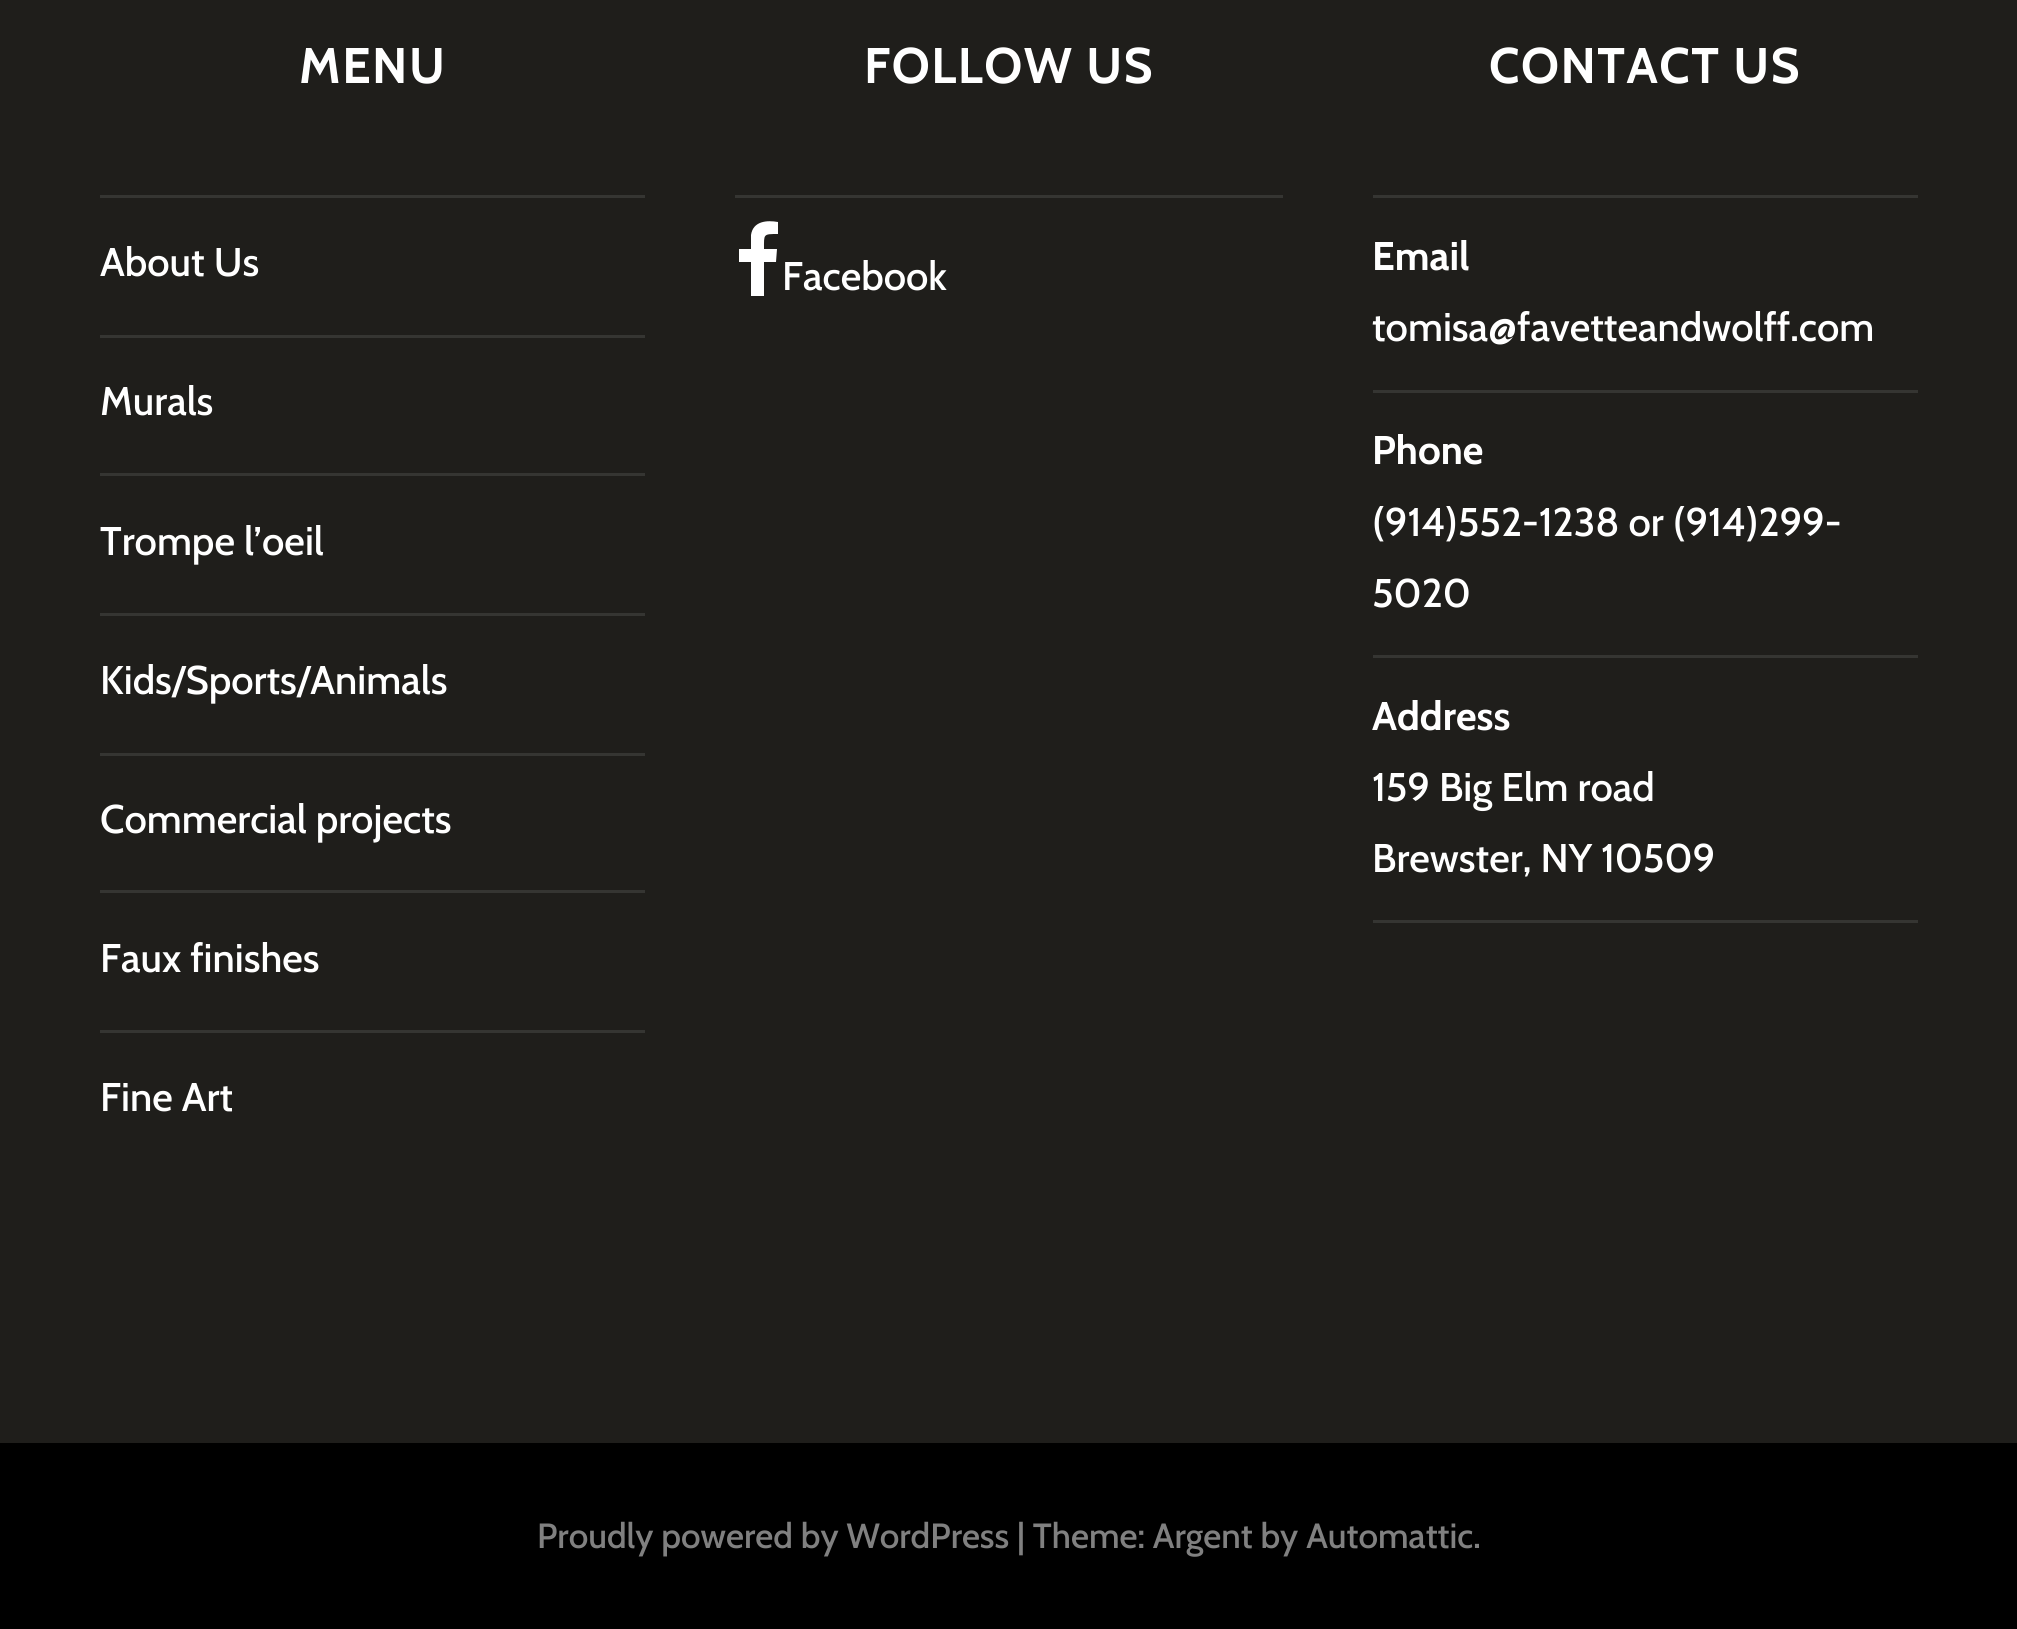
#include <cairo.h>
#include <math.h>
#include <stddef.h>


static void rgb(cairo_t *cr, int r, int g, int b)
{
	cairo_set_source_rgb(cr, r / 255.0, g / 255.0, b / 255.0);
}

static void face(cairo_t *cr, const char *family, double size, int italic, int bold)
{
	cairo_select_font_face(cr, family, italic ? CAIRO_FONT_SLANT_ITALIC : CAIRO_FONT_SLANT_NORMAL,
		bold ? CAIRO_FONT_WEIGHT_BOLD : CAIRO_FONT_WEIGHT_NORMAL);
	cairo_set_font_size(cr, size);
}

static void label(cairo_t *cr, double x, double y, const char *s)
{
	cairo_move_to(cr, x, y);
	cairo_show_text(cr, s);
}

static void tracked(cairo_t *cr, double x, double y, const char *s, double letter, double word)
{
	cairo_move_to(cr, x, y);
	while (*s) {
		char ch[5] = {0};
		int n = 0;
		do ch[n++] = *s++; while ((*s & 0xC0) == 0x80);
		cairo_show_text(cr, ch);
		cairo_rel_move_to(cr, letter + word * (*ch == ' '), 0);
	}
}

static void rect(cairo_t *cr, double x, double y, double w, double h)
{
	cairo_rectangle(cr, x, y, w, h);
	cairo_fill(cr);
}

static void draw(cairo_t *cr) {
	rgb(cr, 31, 30, 27);
	cairo_paint(cr);
	face(cr, "Cabin", 50, 0, 1);
	rgb(cr, 255, 255, 255);
	tracked(cr, 299, 83, "MENU", 1.5, 0);
	rgb(cr, 53, 53, 50);
	rect(cr, 100, 195, 545, 3);
	face(cr, "Cabin Medium", 40, 0, 0);
	rgb(cr, 255, 255, 255);
	label(cr, 100, 276, "About Us");
	rgb(cr, 53, 53, 50);
	rect(cr, 100, 335, 545, 3);
	rgb(cr, 255, 255, 255);
	label(cr, 100, 415, "Murals");
	rgb(cr, 53, 53, 50);
	rect(cr, 100, 473, 545, 3);
	rgb(cr, 255, 255, 255);
	label(cr, 100, 555, "Trompe l’oeil");
	rgb(cr, 53, 53, 50);
	rect(cr, 100, 613, 545, 3);
	rgb(cr, 255, 255, 255);
	label(cr, 100, 694, "Kids/Sports/Animals");
	rgb(cr, 53, 53, 50);
	rect(cr, 100, 753, 545, 3);
	rgb(cr, 255, 255, 255);
	label(cr, 100, 833, "Commercial projects");
	rgb(cr, 53, 53, 50);
	rect(cr, 100, 890, 545, 3);
	rgb(cr, 255, 255, 255);
	label(cr, 100, 972, "Faux finishes");
	rgb(cr, 53, 53, 50);
	rect(cr, 100, 1030, 545, 3);
	rgb(cr, 255, 255, 255);
	label(cr, 100, 1111, "Fine Art");
	face(cr, "Cabin", 50, 0, 1);
	tracked(cr, 864, 83, "FOLLOW US", 1.5, 0);
	rgb(cr, 53, 53, 50);
	rect(cr, 735, 195, 548, 3);
	rgb(cr, 255, 255, 255);
	cairo_new_path(cr);
	cairo_move_to(cr, 778, 222);
	cairo_line_to(cr, 778, 234);
	cairo_curve_to(cr, 763, 234, 764, 234, 764, 249);
	cairo_line_to(cr, 777, 249);
	cairo_line_to(cr, 776, 262);
	cairo_line_to(cr, 764, 262);
	cairo_line_to(cr, 764, 296);
	cairo_line_to(cr, 751, 296);
	cairo_line_to(cr, 751, 262);
	cairo_line_to(cr, 739, 262);
	cairo_line_to(cr, 739, 249);
	cairo_line_to(cr, 751, 249);
	cairo_line_to(cr, 751, 235);
	cairo_curve_to(cr, 753, 221, 767, 220, 778, 222);
	cairo_close_path(cr);
	cairo_fill(cr);
	face(cr, "Cabin Medium", 40, 0, 0);
	label(cr, 782, 290, "Facebook");
	face(cr, "Cabin", 50, 0, 1);
	tracked(cr, 1489, 83, "CONTACT US", 1.5, 0);
	rgb(cr, 53, 53, 50);
	rect(cr, 1373, 195, 545, 3);
	face(cr, "Cabin", 40, 0, 1);
	rgb(cr, 255, 255, 255);
	label(cr, 1372, 270, "Email");
	face(cr, "Cabin Medium", 40, 0, 0);
	label(cr, 1372, 341, "tomisa@favetteandwolff.com");
	rgb(cr, 53, 53, 50);
	rect(cr, 1373, 390, 545, 3);
	face(cr, "Cabin", 40, 0, 1);
	rgb(cr, 255, 255, 255);
	label(cr, 1372, 464, "Phone");
	face(cr, "Cabin Medium", 40, 0, 0);
	label(cr, 1372, 536, "(914)552-1238 or (914)299-");
	label(cr, 1372, 607, "5020");
	rgb(cr, 53, 53, 50);
	rect(cr, 1373, 655, 545, 3);
	face(cr, "Cabin", 40, 0, 1);
	rgb(cr, 255, 255, 255);
	label(cr, 1372, 730, "Address");
	face(cr, "Cabin Medium", 40, 0, 0);
	label(cr, 1372, 801, "159 Big Elm road");
	label(cr, 1372, 872, "Brewster, NY 10509");
	rgb(cr, 53, 53, 50);
	rect(cr, 1373, 920, 545, 3);
	rgb(cr, 0, 0, 0);
	rect(cr, 0, 1443, 2017, 186);
	face(cr, "Cabin Medium", 35, 0, 0);
	rgb(cr, 128, 128, 128);
	label(cr, 537, 1548, "Proudly powered by WordPress | Theme: Argent by Automattic.");
}

int main(void) {
	cairo_surface_t *surface = cairo_image_surface_create(CAIRO_FORMAT_RGB24, 2017, 1629);
	cairo_t *cr = cairo_create(surface);
	cairo_font_options_t *options = cairo_font_options_create();
	cairo_font_options_set_hint_metrics(options, CAIRO_HINT_METRICS_OFF);
	cairo_font_options_set_hint_style(options, CAIRO_HINT_STYLE_NONE);
	cairo_set_font_options(cr, options);
	cairo_set_miter_limit(cr, 4);
	draw(cr);
	cairo_surface_write_to_png(surface, "render.png");
	cairo_font_options_destroy(options);
	cairo_destroy(cr);
	cairo_surface_destroy(surface);
	return 0;
}
